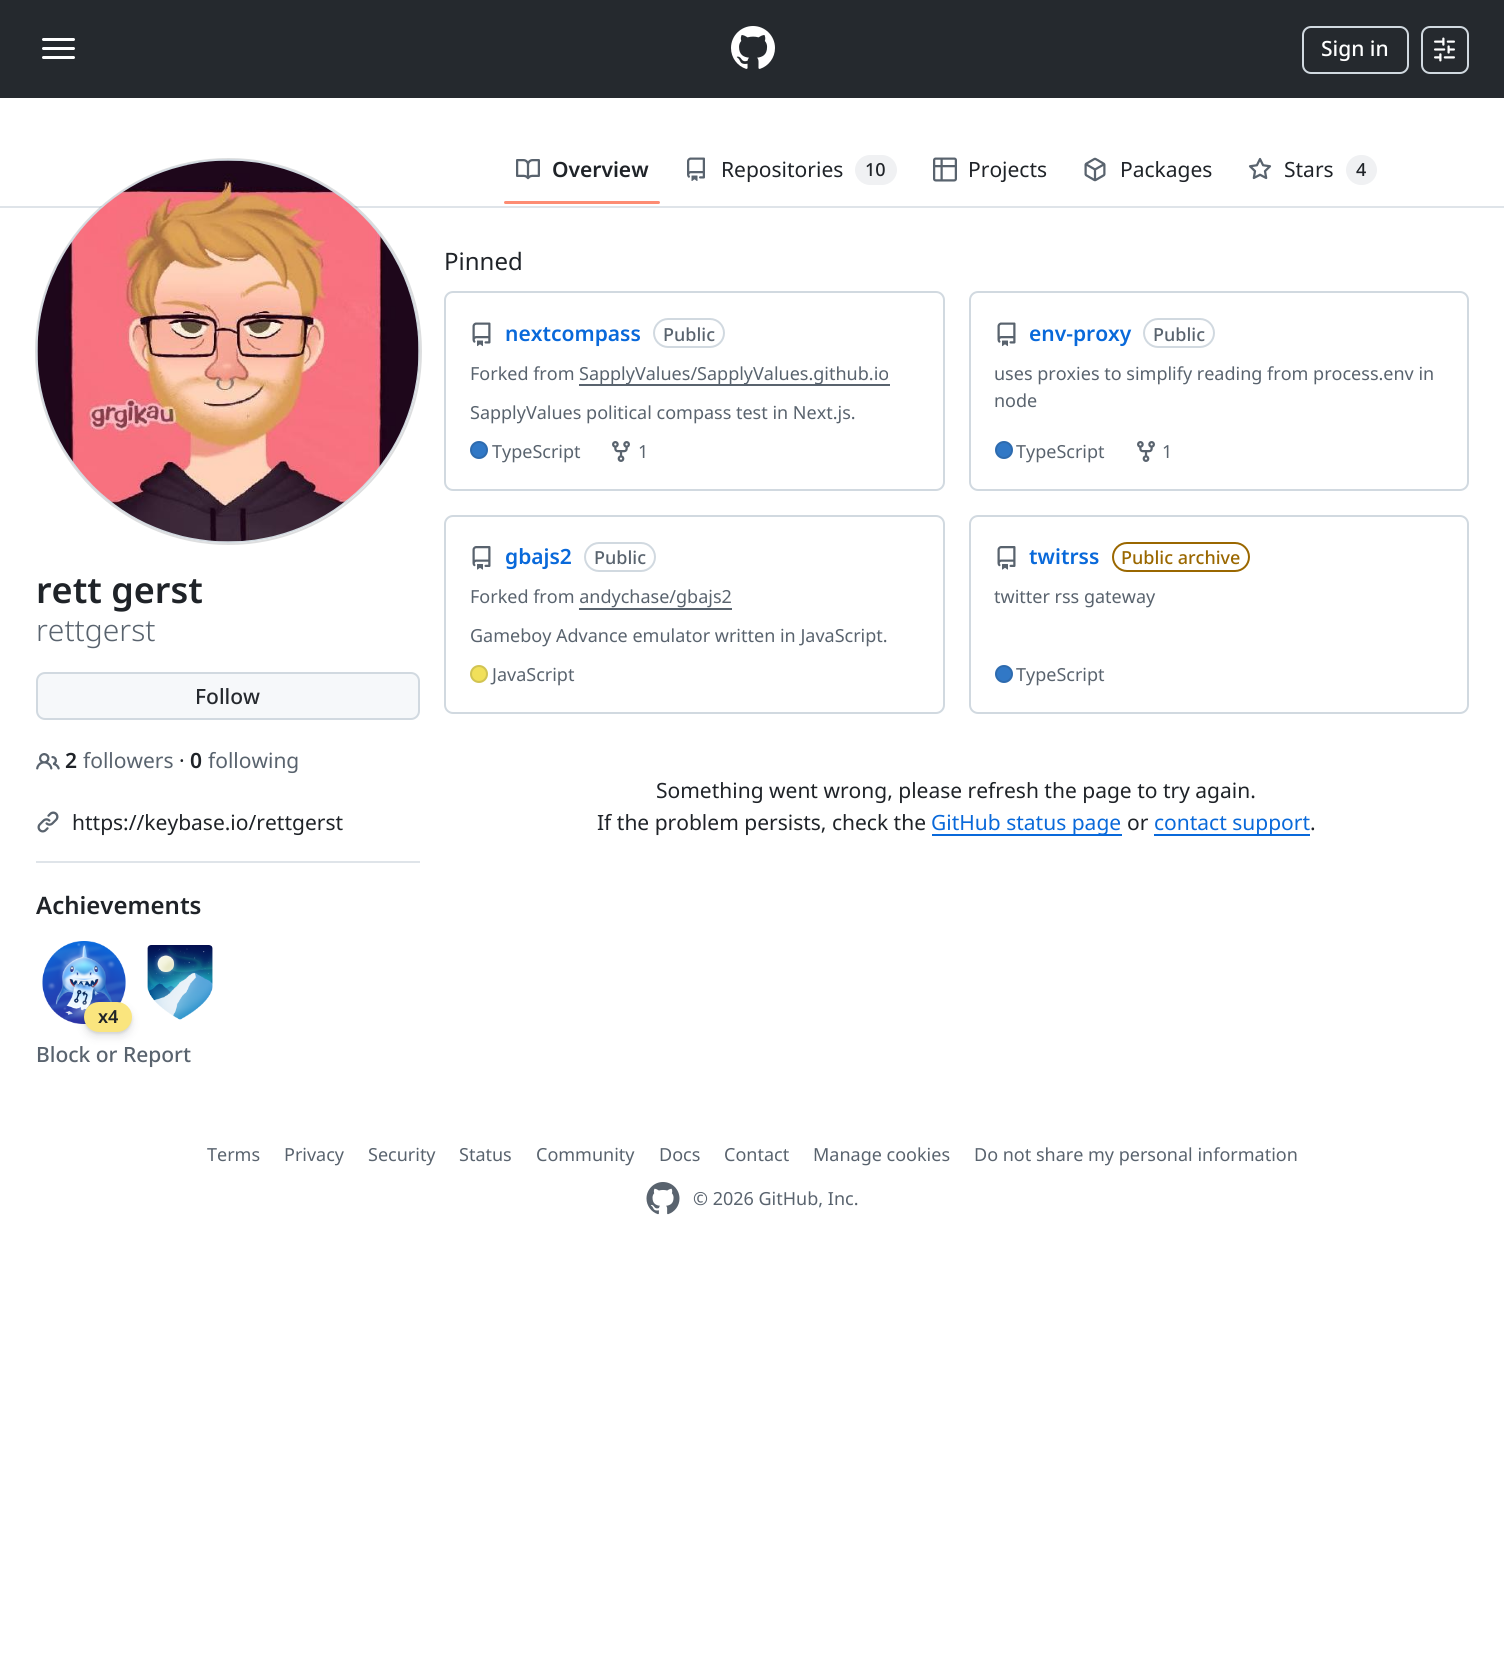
#include <cairo.h>
#include <math.h>
#include <stddef.h>


static void rgb(cairo_t *cr, int r, int g, int b)
{
	cairo_set_source_rgb(cr, r / 255.0, g / 255.0, b / 255.0);
}

static void face(cairo_t *cr, const char *family, double size, int italic, int bold)
{
	cairo_select_font_face(cr, family, italic ? CAIRO_FONT_SLANT_ITALIC : CAIRO_FONT_SLANT_NORMAL,
		bold ? CAIRO_FONT_WEIGHT_BOLD : CAIRO_FONT_WEIGHT_NORMAL);
	cairo_set_font_size(cr, size);
}

static void label(cairo_t *cr, double x, double y, const char *s)
{
	cairo_move_to(cr, x, y);
	cairo_show_text(cr, s);
}

static void rect(cairo_t *cr, double x, double y, double w, double h)
{
	cairo_rectangle(cr, x, y, w, h);
	cairo_fill(cr);
}

static void rrect(cairo_t *cr, double x, double y, double w, double h, double r)
{
	cairo_new_sub_path(cr);
	cairo_arc(cr, x + w - r, y + h - r, r, 0, M_PI / 2);
	cairo_arc(cr, x + r, y + h - r, r, M_PI / 2, M_PI);
	cairo_arc(cr, x + r, y + r, r, M_PI, 1.5 * M_PI);
	cairo_arc(cr, x + w - r, y + r, r, 1.5 * M_PI, 2 * M_PI);
	cairo_close_path(cr);
}

static void soft_shadow(cairo_t *cr, double x, double y, double w, double h, double r, double blur, double alpha)
{
	cairo_push_group_with_content(cr, CAIRO_CONTENT_ALPHA);
	cairo_set_operator(cr, CAIRO_OPERATOR_SOURCE);
	for (int i = 15; i >= -15 && fmin(w, h) + blur * i / 3 > 0; i -= 2) {
		double e = blur * i / 6;
		cairo_set_source_rgba(cr, 0, 0, 0, alpha * erfc((i - 1) / 8.5) / 2);
		rrect(cr, x - e, y - e, w + 2 * e, h + 2 * e, fmax(0, fmin(r + e + blur * .6, fmin(w, h) / 2 + e)));
		cairo_fill(cr);
	}
	cairo_pattern_t *soft = cairo_pop_group(cr);
	cairo_mask(cr, soft);
	cairo_pattern_destroy(soft);
}

static void image(cairo_t *cr, const char *path, double x, double y, double w, double h)
{
	cairo_surface_t *image = cairo_image_surface_create_from_png(path);
	cairo_save(cr);
	cairo_set_source_surface(cr, image, x, y);
	cairo_rectangle(cr, x, y, w, h);
	cairo_fill(cr);
	cairo_restore(cr);
	cairo_surface_destroy(image);
}

static void draw(cairo_t *cr) {
	rgb(cr, 255, 255, 255);
	cairo_paint(cr);
	rgb(cr, 37, 41, 46);
	rect(cr, 0, 0, 1504, 98);
	rgb(cr, 255, 255, 255);
	rrect(cr, 42, 38, 33, 3, 1.5);
	cairo_fill(cr);
	rrect(cr, 42, 47, 33, 3, 1.5);
	cairo_fill(cr);
	rrect(cr, 42, 56, 33, 3, 1.5);
	cairo_fill(cr);
	image(cr, "image0.png", 731, 26, 44, 43);
	rrect(cr, 1303, 27, 105, 46, 8);
	rgb(cr, 209, 217, 224);
	cairo_stroke(cr);
	face(cr, "Noto Sans Medium", 21, 0, 0);
	rgb(cr, 255, 255, 255);
	label(cr, 1321, 56, "Sign in");
	rrect(cr, 1422, 27, 46, 46, 8);
	rgb(cr, 209, 217, 224);
	cairo_stroke(cr);
	image(cr, "image1.png", 1434, 37, 21, 25);
	rgb(cr, 223, 228, 233);
	rect(cr, 0, 206, 1504, 2);
	image(cr, "image2.png", 516, 159, 24, 21);
	face(cr, "Noto Sans SemiBold", 21, 0, 0);
	rgb(cr, 31, 35, 40);
	label(cr, 552, 177, "Overview");
	rgb(cr, 253, 140, 115);
	rrect(cr, 504, 201, 156, 3, 1.5);
	cairo_fill(cr);
	image(cr, "image3.png", 687, 157, 18, 24);
	face(cr, "Noto Sans", 21, 0, 0);
	rgb(cr, 31, 35, 40);
	label(cr, 721, 177, "Repositories");
	rgb(cr, 240, 241, 243);
	rrect(cr, 855, 155, 42, 30, 15);
	cairo_fill(cr);
	face(cr, "Noto Sans Medium", 18, 0, 0);
	rgb(cr, 31, 35, 40);
	label(cr, 865, 176, "10");
	image(cr, "image4.png", 933, 157, 24, 25);
	face(cr, "Noto Sans", 21, 0, 0);
	label(cr, 968, 177, "Projects");
	image(cr, "image5.png", 1084, 157, 22, 25);
	label(cr, 1120, 177, "Packages");
	image(cr, "image6.png", 1248, 157, 24, 23);
	label(cr, 1284, 177, "Stars");
	rgb(cr, 240, 241, 243);
	rrect(cr, 1346, 155, 31, 30, 15);
	cairo_fill(cr);
	face(cr, "Noto Sans Medium", 18, 0, 0);
	rgb(cr, 31, 35, 40);
	label(cr, 1356, 176, "4");
	cairo_new_path(cr);
	cairo_arc(cr, 228.5, 351.5, 192.5, 0, 2 * M_PI);
	cairo_set_source_rgba(cr, 0.122, 0.137, 0.157, 0.15);
	cairo_stroke(cr);
	cairo_arc(cr, 228, 351, 191, 0, 2 * M_PI);
	rgb(cr, 209, 217, 224);
	cairo_stroke(cr);
	image(cr, "image7.png", 37, 160, 382, 382);
	face(cr, "Noto Sans SemiBold", 36, 0, 0);
	rgb(cr, 31, 35, 40);
	label(cr, 36, 603, "rett gerst");
	face(cr, "Noto Sans Light", 30, 0, 0);
	rgb(cr, 89, 99, 110);
	label(cr, 36, 641, "rettgerst");
	rgb(cr, 246, 248, 250);
	rrect(cr, 37, 673, 382, 46, 8);
	cairo_fill_preserve(cr);
	rgb(cr, 209, 217, 224);
	cairo_stroke(cr);
	face(cr, "Noto Sans Medium", 21, 0, 0);
	rgb(cr, 37, 41, 46);
	label(cr, 195, 704, "Follow");
	image(cr, "image8.png", 36, 753, 24, 17);
	face(cr, "Noto Sans SemiBold", 21, 0, 0);
	rgb(cr, 31, 35, 40);
	label(cr, 65, 768, "2");
	face(cr, "Noto Sans", 21, 0, 0);
	rgb(cr, 89, 99, 110);
	label(cr, 83, 768, "followers");
	rgb(cr, 31, 35, 40);
	label(cr, 179, 768, "·");
	face(cr, "Noto Sans SemiBold", 21, 0, 0);
	label(cr, 190, 768, "0");
	face(cr, "Noto Sans", 21, 0, 0);
	rgb(cr, 89, 99, 110);
	label(cr, 208, 768, "following");
	image(cr, "image9.png", 37, 811, 22, 22);
	rgb(cr, 31, 35, 40);
	label(cr, 72, 830, "https://keybase.io/rettgerst");
	rgb(cr, 223, 228, 233);
	rect(cr, 36, 861, 384, 2);
	face(cr, "Noto Sans SemiBold", 24, 0, 0);
	rgb(cr, 31, 35, 40);
	label(cr, 36, 914, "Achievements");
	image(cr, "image10.png", 42, 941, 84, 83);
	rgb(cr, 37, 41, 46);
	soft_shadow(cr, 84, 1007, 48, 30, 15, 4.5, 0.12);
	soft_shadow(cr, 84, 1004, 48, 30, 15, 1, 0.1);
	rgb(cr, 250, 229, 126);
	rrect(cr, 85, 1003, 46, 28, 14);
	cairo_fill_preserve(cr);
	cairo_stroke(cr);
	face(cr, "Noto Sans SemiBold", 18, 0, 0);
	rgb(cr, 31, 35, 40);
	label(cr, 98, 1023, "x4");
	image(cr, "image11.png", 147, 945, 66, 75);
	face(cr, "Noto Sans Medium", 21, 0, 0);
	rgb(cr, 89, 99, 110);
	label(cr, 36, 1062, "Block or Report");
	face(cr, "Noto Sans", 24, 0, 0);
	rgb(cr, 31, 35, 40);
	label(cr, 444, 270, "Pinned");
	rrect(cr, 445, 292, 499, 198, 8);
	rgb(cr, 209, 217, 224);
	cairo_stroke(cr);
	image(cr, "image12.png", 472, 322, 19, 25);
	face(cr, "Noto Sans SemiBold", 21, 0, 0);
	rgb(cr, 9, 105, 218);
	label(cr, 505, 341, "nextcompass");
	rrect(cr, 654, 319, 70, 28, 14);
	rgb(cr, 209, 217, 224);
	cairo_stroke(cr);
	face(cr, "Noto Sans Medium", 18, 0, 0);
	rgb(cr, 89, 99, 110);
	label(cr, 663, 341, "Public");
	face(cr, "Noto Sans", 18, 0, 0);
	label(cr, 470, 380, "Forked from");
	rect(cr, 579, 384, 311, 2);
	label(cr, 579, 380, "SapplyValues/SapplyValues.github.io");
	label(cr, 470, 419, "SapplyValues political compass test in Next.js.");
	rgb(cr, 49, 120, 198);
	cairo_new_path(cr);
	cairo_arc(cr, 479, 450, 9, 0, 2 * M_PI);
	cairo_fill(cr);
	cairo_arc(cr, 479, 450, 8, 0, 2 * M_PI);
	cairo_set_source_rgba(cr, 0.122, 0.137, 0.157, 0.15);
	cairo_stroke(cr);
	rgb(cr, 89, 99, 110);
	label(cr, 492, 458, "TypeScript");
	image(cr, "image13.png", 612, 441, 18, 21);
	label(cr, 638, 458, "1");
	rrect(cr, 970, 292, 498, 198, 8);
	rgb(cr, 209, 217, 224);
	cairo_stroke(cr);
	image(cr, "image12.png", 997, 322, 19, 25);
	face(cr, "Noto Sans SemiBold", 21, 0, 0);
	rgb(cr, 9, 105, 218);
	label(cr, 1029, 341, "env-proxy");
	rrect(cr, 1144, 319, 70, 28, 14);
	rgb(cr, 209, 217, 224);
	cairo_stroke(cr);
	face(cr, "Noto Sans Medium", 18, 0, 0);
	rgb(cr, 89, 99, 110);
	label(cr, 1153, 341, "Public");
	face(cr, "Noto Sans", 18, 0, 0);
	label(cr, 994, 380, "uses proxies to simplify reading from process.env in");
	label(cr, 994, 407, "node");
	rgb(cr, 49, 120, 198);
	cairo_new_path(cr);
	cairo_arc(cr, 1004, 450, 9, 0, 2 * M_PI);
	cairo_fill(cr);
	cairo_arc(cr, 1004, 450, 8, 0, 2 * M_PI);
	cairo_set_source_rgba(cr, 0.122, 0.137, 0.157, 0.15);
	cairo_stroke(cr);
	rgb(cr, 89, 99, 110);
	label(cr, 1016, 458, "TypeScript");
	image(cr, "image13.png", 1137, 441, 18, 21);
	label(cr, 1162, 458, "1");
	rrect(cr, 445, 516, 499, 197, 8);
	rgb(cr, 209, 217, 224);
	cairo_stroke(cr);
	image(cr, "image14.png", 472, 546, 19, 24);
	face(cr, "Noto Sans SemiBold", 21, 0, 0);
	rgb(cr, 9, 105, 218);
	label(cr, 505, 564, "gbajs2");
	rrect(cr, 585, 543, 70, 28, 14);
	rgb(cr, 209, 217, 224);
	cairo_stroke(cr);
	face(cr, "Noto Sans Medium", 18, 0, 0);
	rgb(cr, 89, 99, 110);
	label(cr, 594, 564, "Public");
	face(cr, "Noto Sans", 18, 0, 0);
	label(cr, 470, 603, "Forked from andychase/gbajs2");
	rect(cr, 579, 608, 153, 2);
	label(cr, 470, 642, "Gameboy Advance emulator written in JavaScript.");
	rgb(cr, 241, 224, 90);
	cairo_new_path(cr);
	cairo_arc(cr, 479, 674, 9, 0, 2 * M_PI);
	cairo_fill(cr);
	cairo_arc(cr, 479, 674, 8, 0, 2 * M_PI);
	cairo_set_source_rgba(cr, 0.122, 0.137, 0.157, 0.15);
	cairo_stroke(cr);
	rgb(cr, 89, 99, 110);
	label(cr, 492, 681, "JavaScript");
	rrect(cr, 970, 516, 498, 197, 8);
	rgb(cr, 209, 217, 224);
	cairo_stroke(cr);
	image(cr, "image14.png", 997, 546, 19, 24);
	face(cr, "Noto Sans SemiBold", 21, 0, 0);
	rgb(cr, 9, 105, 218);
	label(cr, 1029, 564, "twitrss");
	rrect(cr, 1113, 543, 136, 28, 14);
	rgb(cr, 154, 103, 0);
	cairo_stroke(cr);
	face(cr, "Noto Sans Medium", 18, 0, 0);
	label(cr, 1121, 564, "Public archive");
	face(cr, "Noto Sans", 18, 0, 0);
	rgb(cr, 89, 99, 110);
	label(cr, 994, 603, "twitter rss gateway");
	rgb(cr, 49, 120, 198);
	cairo_new_path(cr);
	cairo_arc(cr, 1004, 674, 9, 0, 2 * M_PI);
	cairo_fill(cr);
	cairo_arc(cr, 1004, 674, 8, 0, 2 * M_PI);
	cairo_set_source_rgba(cr, 0.122, 0.137, 0.157, 0.15);
	cairo_stroke(cr);
	rgb(cr, 89, 99, 110);
	label(cr, 1016, 681, "TypeScript");
	face(cr, "Noto Sans", 21, 0, 0);
	rgb(cr, 31, 35, 40);
	label(cr, 656, 798, "Something went wrong, please refresh the page to try again.");
	label(cr, 597, 830, "If the problem persists, check the");
	rgb(cr, 9, 105, 218);
	rect(cr, 932, 834, 190, 2);
	label(cr, 931, 830, "GitHub status page");
	rgb(cr, 31, 35, 40);
	label(cr, 1127, 830, "or");
	rgb(cr, 9, 105, 218);
	rect(cr, 1154, 834, 156, 2);
	label(cr, 1154, 830, "contact support");
	rgb(cr, 31, 35, 40);
	label(cr, 1310, 830, ".");
	face(cr, "Noto Sans", 18, 0, 0);
	rgb(cr, 89, 99, 110);
	label(cr, 207, 1161, "Terms");
	label(cr, 284, 1161, "Privacy");
	label(cr, 368, 1161, "Security");
	label(cr, 459, 1161, "Status");
	label(cr, 536, 1161, "Community");
	label(cr, 659, 1161, "Docs");
	label(cr, 724, 1161, "Contact");
	label(cr, 813, 1161, "Manage cookies");
	label(cr, 974, 1161, "Do not share my personal information");
	image(cr, "image15.png", 646, 1182, 34, 33);
	label(cr, 693, 1205, "© 2026 GitHub, Inc.");
}

int main(void) {
	cairo_surface_t *surface = cairo_image_surface_create(CAIRO_FORMAT_RGB24, 1504, 1673);
	cairo_t *cr = cairo_create(surface);
	cairo_font_options_t *options = cairo_font_options_create();
	cairo_font_options_set_hint_metrics(options, CAIRO_HINT_METRICS_OFF);
	cairo_font_options_set_hint_style(options, CAIRO_HINT_STYLE_NONE);
	cairo_set_font_options(cr, options);
	cairo_set_miter_limit(cr, 4);
	draw(cr);
	cairo_surface_write_to_png(surface, "render.png");
	cairo_font_options_destroy(options);
	cairo_destroy(cr);
	cairo_surface_destroy(surface);
	return 0;
}
